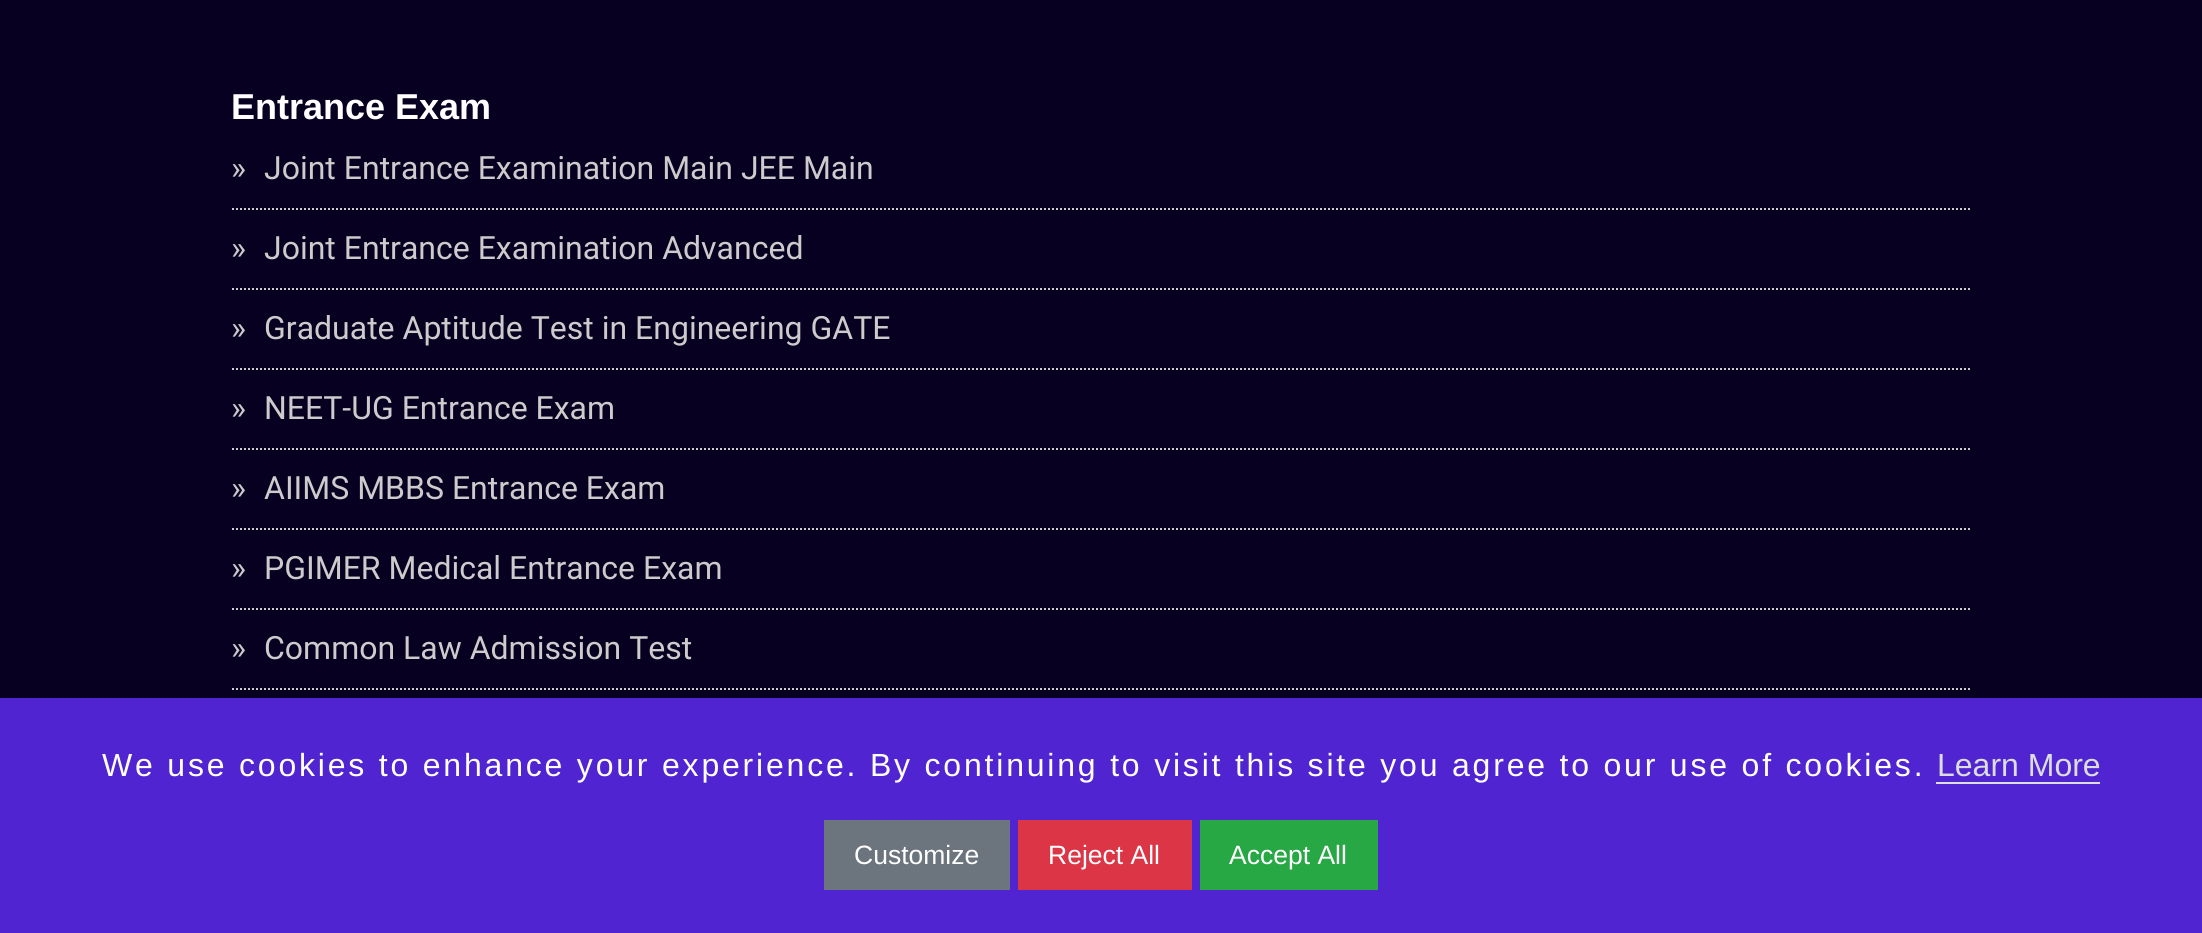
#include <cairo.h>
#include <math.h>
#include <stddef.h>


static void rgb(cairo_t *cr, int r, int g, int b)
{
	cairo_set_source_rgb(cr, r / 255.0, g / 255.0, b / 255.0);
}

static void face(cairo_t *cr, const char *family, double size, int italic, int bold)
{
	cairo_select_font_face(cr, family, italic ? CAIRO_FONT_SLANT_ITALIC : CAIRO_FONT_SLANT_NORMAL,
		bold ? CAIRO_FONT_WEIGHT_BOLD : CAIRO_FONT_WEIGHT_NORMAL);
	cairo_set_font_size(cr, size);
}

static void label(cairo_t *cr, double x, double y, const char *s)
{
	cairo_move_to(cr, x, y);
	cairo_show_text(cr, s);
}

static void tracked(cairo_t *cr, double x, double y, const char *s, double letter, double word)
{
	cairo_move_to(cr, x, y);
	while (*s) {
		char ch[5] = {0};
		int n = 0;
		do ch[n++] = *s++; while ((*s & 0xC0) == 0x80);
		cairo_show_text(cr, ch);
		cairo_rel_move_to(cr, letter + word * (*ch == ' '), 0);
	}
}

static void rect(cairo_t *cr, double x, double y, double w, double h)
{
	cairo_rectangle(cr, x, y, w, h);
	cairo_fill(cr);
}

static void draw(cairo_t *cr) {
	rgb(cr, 8, 0, 33);
	cairo_paint(cr);
	face(cr, "Liberation Sans", 36, 0, 1);
	rgb(cr, 255, 255, 255);
	label(cr, 231, 119, "Entrance Exam");
	cairo_new_path(cr);
	cairo_move_to(cr, 232, 209);
	cairo_line_to(cr, 1972, 209);
	rgb(cr, 204, 204, 204);
	cairo_set_dash(cr, (double[]){2, 2}, 2, 0);
	cairo_stroke(cr);
	face(cr, "Roboto", 32, 0, 0);
	label(cr, 231, 179, "»");
	label(cr, 264, 179, "Joint Entrance Examination Main JEE Main");
	cairo_new_path(cr);
	cairo_move_to(cr, 232, 289);
	cairo_line_to(cr, 1972, 289);
	cairo_stroke(cr);
	label(cr, 231, 259, "»");
	label(cr, 264, 259, "Joint Entrance Examination Advanced");
	cairo_new_path(cr);
	cairo_move_to(cr, 232, 369);
	cairo_line_to(cr, 1972, 369);
	cairo_stroke(cr);
	label(cr, 231, 339, "»");
	label(cr, 264, 339, "Graduate Aptitude Test in Engineering GATE");
	cairo_new_path(cr);
	cairo_move_to(cr, 232, 449);
	cairo_line_to(cr, 1972, 449);
	cairo_stroke(cr);
	label(cr, 231, 419, "»");
	label(cr, 264, 419, "NEET-UG Entrance Exam");
	cairo_new_path(cr);
	cairo_move_to(cr, 232, 529);
	cairo_line_to(cr, 1972, 529);
	cairo_stroke(cr);
	label(cr, 231, 499, "»");
	label(cr, 264, 499, "AIIMS MBBS Entrance Exam");
	cairo_new_path(cr);
	cairo_move_to(cr, 232, 609);
	cairo_line_to(cr, 1972, 609);
	cairo_stroke(cr);
	label(cr, 231, 579, "»");
	label(cr, 264, 579, "PGIMER Medical Entrance Exam");
	cairo_new_path(cr);
	cairo_move_to(cr, 232, 689);
	cairo_line_to(cr, 1972, 689);
	cairo_stroke(cr);
	label(cr, 231, 659, "»");
	label(cr, 264, 659, "Common Law Admission Test");
	rgb(cr, 80, 37, 209);
	rect(cr, 0, 698, 2202, 235);
	face(cr, "Liberation Sans", 32, 0, 0);
	rgb(cr, 255, 255, 255);
	tracked(cr, 102, 776, "We use cookies to enhance your experience. By continuing to visit this site you agree to our use of cookies.", 2.8, 0);
	rgb(cr, 221, 221, 221);
	label(cr, 1937, 776, "Learn More");
	rect(cr, 1936, 782, 164, 2);
	rgb(cr, 108, 117, 125);
	rect(cr, 824, 820, 186, 70);
	face(cr, "Liberation Sans", 26.5, 0, 0);
	rgb(cr, 255, 255, 255);
	label(cr, 854, 864, "Customize");
	rgb(cr, 220, 53, 69);
	rect(cr, 1018, 820, 174, 70);
	rgb(cr, 255, 255, 255);
	label(cr, 1048, 864, "Reject All");
	rgb(cr, 40, 167, 69);
	rect(cr, 1200, 820, 178, 70);
	rgb(cr, 255, 255, 255);
	label(cr, 1229, 864, "Accept All");
}

int main(void) {
	cairo_surface_t *surface = cairo_image_surface_create(CAIRO_FORMAT_RGB24, 2202, 933);
	cairo_t *cr = cairo_create(surface);
	cairo_font_options_t *options = cairo_font_options_create();
	cairo_font_options_set_hint_metrics(options, CAIRO_HINT_METRICS_OFF);
	cairo_font_options_set_hint_style(options, CAIRO_HINT_STYLE_NONE);
	cairo_set_font_options(cr, options);
	cairo_set_miter_limit(cr, 4);
	draw(cr);
	cairo_surface_write_to_png(surface, "render.png");
	cairo_font_options_destroy(options);
	cairo_destroy(cr);
	cairo_surface_destroy(surface);
	return 0;
}
